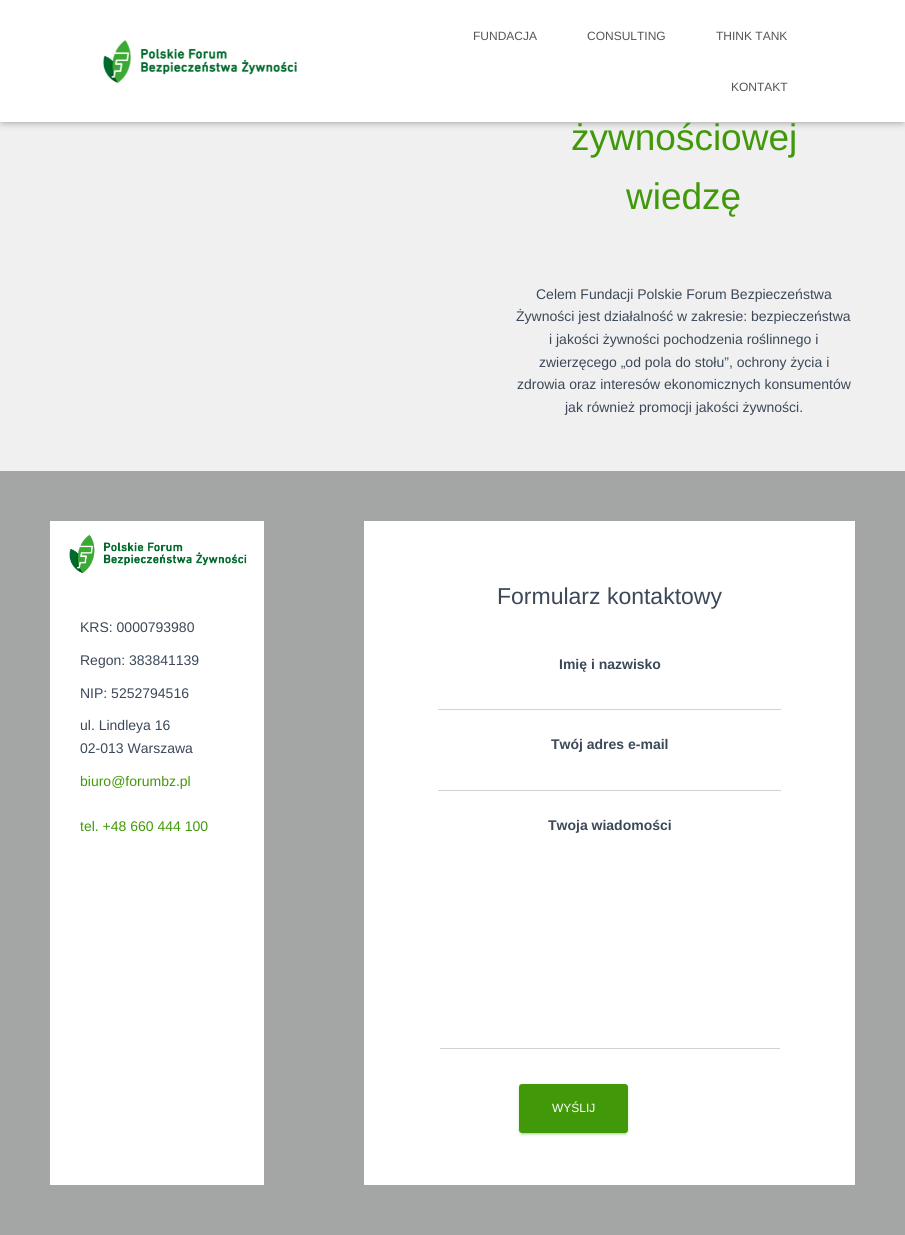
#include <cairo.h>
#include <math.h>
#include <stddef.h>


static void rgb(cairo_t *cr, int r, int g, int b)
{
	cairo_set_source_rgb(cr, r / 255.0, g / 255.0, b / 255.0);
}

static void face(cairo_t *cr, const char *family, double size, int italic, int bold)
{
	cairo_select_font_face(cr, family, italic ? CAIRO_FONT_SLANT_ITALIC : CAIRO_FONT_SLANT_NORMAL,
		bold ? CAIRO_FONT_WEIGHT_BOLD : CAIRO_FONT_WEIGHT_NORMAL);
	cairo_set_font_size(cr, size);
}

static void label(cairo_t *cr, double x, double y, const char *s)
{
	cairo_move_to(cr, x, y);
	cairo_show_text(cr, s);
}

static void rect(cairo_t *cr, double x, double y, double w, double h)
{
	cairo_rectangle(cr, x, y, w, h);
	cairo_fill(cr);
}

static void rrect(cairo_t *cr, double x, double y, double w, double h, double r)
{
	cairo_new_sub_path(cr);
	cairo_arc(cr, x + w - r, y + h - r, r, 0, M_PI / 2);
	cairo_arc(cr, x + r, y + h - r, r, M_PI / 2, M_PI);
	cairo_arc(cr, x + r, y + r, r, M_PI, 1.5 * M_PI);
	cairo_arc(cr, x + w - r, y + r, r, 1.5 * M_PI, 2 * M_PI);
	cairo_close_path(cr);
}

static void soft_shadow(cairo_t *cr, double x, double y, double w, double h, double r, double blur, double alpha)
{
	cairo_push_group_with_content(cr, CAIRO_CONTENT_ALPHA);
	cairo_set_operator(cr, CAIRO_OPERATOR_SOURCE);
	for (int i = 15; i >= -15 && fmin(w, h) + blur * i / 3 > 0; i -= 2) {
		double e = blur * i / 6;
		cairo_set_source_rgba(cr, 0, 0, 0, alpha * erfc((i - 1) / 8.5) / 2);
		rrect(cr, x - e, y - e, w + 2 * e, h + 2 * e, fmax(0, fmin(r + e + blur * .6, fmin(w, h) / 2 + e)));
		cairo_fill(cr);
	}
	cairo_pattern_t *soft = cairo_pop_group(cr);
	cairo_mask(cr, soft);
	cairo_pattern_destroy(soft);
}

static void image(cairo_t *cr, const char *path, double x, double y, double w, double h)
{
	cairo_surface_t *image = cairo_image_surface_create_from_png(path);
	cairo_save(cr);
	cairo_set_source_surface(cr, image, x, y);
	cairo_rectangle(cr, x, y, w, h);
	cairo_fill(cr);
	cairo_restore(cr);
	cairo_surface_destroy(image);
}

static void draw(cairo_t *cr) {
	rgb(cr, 240, 240, 240);
	cairo_paint(cr);
	rgb(cr, 0, 0, 0);
	soft_shadow(cr, 2, 6, 901, 118, 0, 2.5, 0.1);
	soft_shadow(cr, 0, 1, 905, 122, 0, 5, 0.12);
	soft_shadow(cr, 6, 7, 893, 110, 0, 5, 0.42);
	rgb(cr, 255, 255, 255);
	rect(cr, 0, 0, 905, 122);
	image(cr, "image0.png", 103, 40, 195, 43);
	face(cr, "Liberation Sans", 12, 0, 0);
	rgb(cr, 85, 85, 85);
	label(cr, 473, 40, "FUNDACJA");
	label(cr, 587, 40, "CONSULTING");
	label(cr, 716, 40, "THINK TANK");
	label(cr, 731, 91, "KONTAKT");
	face(cr, "Liberation Sans", 37, 0, 0);
	rgb(cr, 65, 153, 10);
	label(cr, 571, 150, "żywnościowej");
	label(cr, 626, 209, "wiedzę");
	face(cr, "Liberation Sans", 14, 0, 0);
	rgb(cr, 60, 72, 88);
	label(cr, 536, 299, "Celem Fundacji Polskie Forum Bezpieczeństwa");
	label(cr, 516, 321, "Żywności jest działalność w zakresie: bezpieczeństwa");
	label(cr, 549, 344, "i jakości żywności pochodzenia roślinnego i");
	label(cr, 539, 367, "zwierzęcego „od pola do stołu”, ochrony życia i");
	label(cr, 517, 389, "zdrowia oraz interesów ekonomicznych konsumentów");
	label(cr, 565, 412, "jak również promocji jakości żywności.");
	rgb(cr, 164, 165, 165);
	rect(cr, 0, 471, 905, 764);
	rgb(cr, 255, 255, 255);
	rect(cr, 50, 521, 214, 664);
	image(cr, "image1.png", 69, 534, 178, 40);
	rgb(cr, 60, 72, 88);
	label(cr, 80, 632, "KRS: 0000793980");
	label(cr, 80, 665, "Regon: 383841139");
	label(cr, 80, 698, "NIP: 5252794516");
	label(cr, 80, 730, "ul. Lindleya 16");
	label(cr, 80, 753, "02-013 Warszawa");
	rgb(cr, 65, 153, 10);
	label(cr, 80, 786, "biuro@forumbz.pl");
	label(cr, 80, 831, "tel. +48 660 444 100");
	rgb(cr, 255, 255, 255);
	rect(cr, 364, 521, 491, 664);
	face(cr, "Liberation Sans", 23, 0, 0);
	rgb(cr, 60, 72, 88);
	label(cr, 497, 604, "Formularz kontaktowy");
	face(cr, "Liberation Sans", 14, 0, 1);
	label(cr, 559, 669, "Imię i nazwisko");
	rgb(cr, 210, 210, 210);
	rect(cr, 438, 709, 343, 1);
	rgb(cr, 60, 72, 88);
	label(cr, 551, 749, "Twój adres e-mail");
	rgb(cr, 210, 210, 210);
	rect(cr, 438, 790, 343, 1);
	rgb(cr, 60, 72, 88);
	label(cr, 548, 830, "Twoja wiadomości");
	rgb(cr, 210, 210, 210);
	rect(cr, 440, 1048, 340, 1);
	rgb(cr, 65, 153, 10);
	soft_shadow(cr, 519, 1085, 109, 49, 3, 2.5, 0.12);
	soft_shadow(cr, 521, 1089, 105, 45, 1, 0.5, 0.2);
	soft_shadow(cr, 519, 1086, 109, 49, 3, 1, 0.14);
	rgb(cr, 65, 153, 10);
	rrect(cr, 519, 1084, 109, 49, 3);
	cairo_fill(cr);
	face(cr, "Liberation Sans", 12, 0, 0);
	rgb(cr, 255, 255, 255);
	label(cr, 552, 1112, "WYŚLIJ");
}

int main(void) {
	cairo_surface_t *surface = cairo_image_surface_create(CAIRO_FORMAT_RGB24, 905, 1235);
	cairo_t *cr = cairo_create(surface);
	cairo_font_options_t *options = cairo_font_options_create();
	cairo_font_options_set_hint_metrics(options, CAIRO_HINT_METRICS_OFF);
	cairo_font_options_set_hint_style(options, CAIRO_HINT_STYLE_NONE);
	cairo_set_font_options(cr, options);
	cairo_set_miter_limit(cr, 4);
	draw(cr);
	cairo_surface_write_to_png(surface, "render.png");
	cairo_font_options_destroy(options);
	cairo_destroy(cr);
	cairo_surface_destroy(surface);
	return 0;
}
